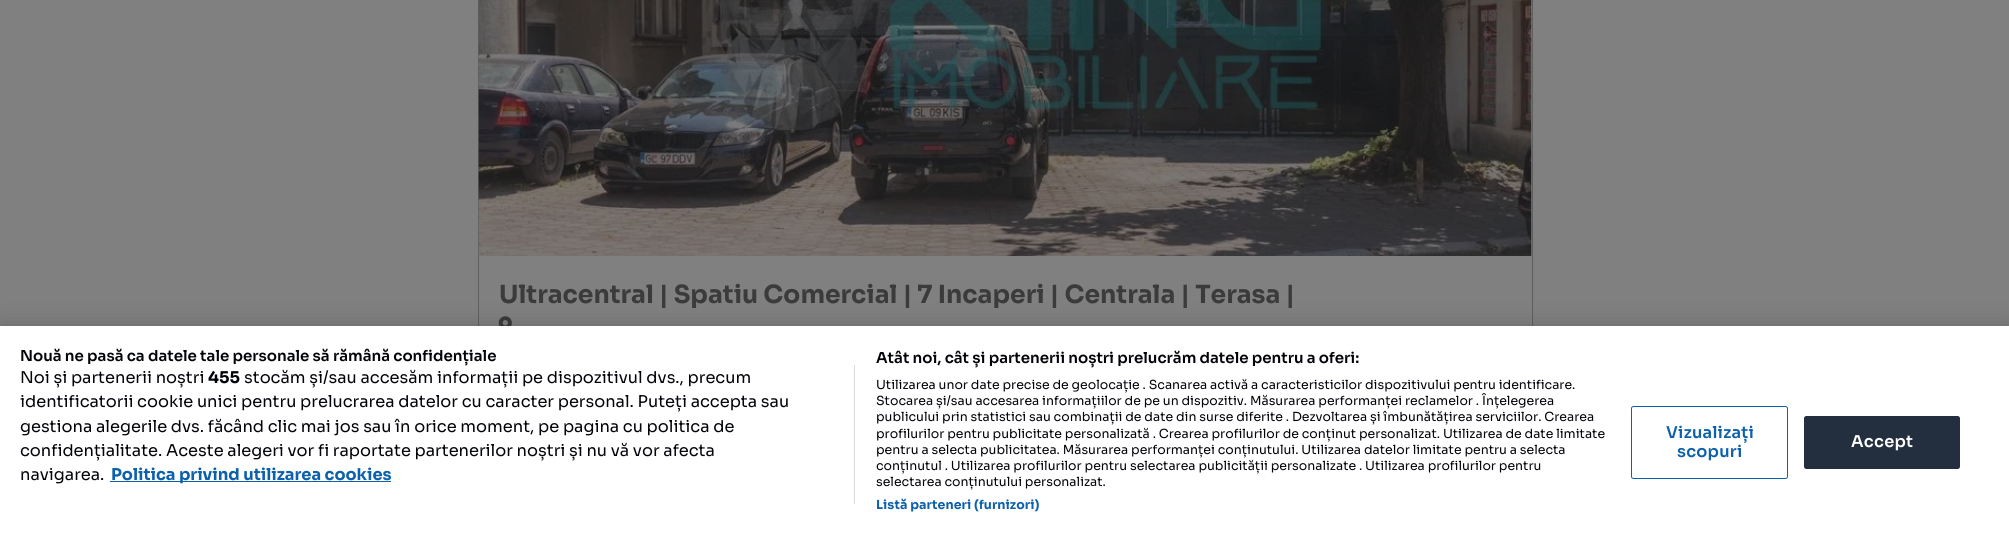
#include <cairo.h>
#include <math.h>
#include <stddef.h>


static void rgb(cairo_t *cr, int r, int g, int b)
{
	cairo_set_source_rgb(cr, r / 255.0, g / 255.0, b / 255.0);
}

static void face(cairo_t *cr, const char *family, double size, int italic, int bold)
{
	cairo_select_font_face(cr, family, italic ? CAIRO_FONT_SLANT_ITALIC : CAIRO_FONT_SLANT_NORMAL,
		bold ? CAIRO_FONT_WEIGHT_BOLD : CAIRO_FONT_WEIGHT_NORMAL);
	cairo_set_font_size(cr, size);
}

static void label(cairo_t *cr, double x, double y, const char *s)
{
	cairo_move_to(cr, x, y);
	cairo_show_text(cr, s);
}

static void tracked(cairo_t *cr, double x, double y, const char *s, double letter, double word)
{
	cairo_move_to(cr, x, y);
	while (*s) {
		char ch[5] = {0};
		int n = 0;
		do ch[n++] = *s++; while ((*s & 0xC0) == 0x80);
		cairo_show_text(cr, ch);
		cairo_rel_move_to(cr, letter + word * (*ch == ' '), 0);
	}
}

static void rect(cairo_t *cr, double x, double y, double w, double h)
{
	cairo_rectangle(cr, x, y, w, h);
	cairo_fill(cr);
}

static void rrect(cairo_t *cr, double x, double y, double w, double h, double r)
{
	cairo_new_sub_path(cr);
	cairo_arc(cr, x + w - r, y + h - r, r, 0, M_PI / 2);
	cairo_arc(cr, x + r, y + h - r, r, M_PI / 2, M_PI);
	cairo_arc(cr, x + r, y + r, r, M_PI, 1.5 * M_PI);
	cairo_arc(cr, x + w - r, y + r, r, 1.5 * M_PI, 2 * M_PI);
	cairo_close_path(cr);
}

static void soft_shadow(cairo_t *cr, double x, double y, double w, double h, double r, double blur, double alpha)
{
	cairo_push_group_with_content(cr, CAIRO_CONTENT_ALPHA);
	cairo_set_operator(cr, CAIRO_OPERATOR_SOURCE);
	for (int i = 15; i >= -15 && fmin(w, h) + blur * i / 3 > 0; i -= 2) {
		double e = blur * i / 6;
		cairo_set_source_rgba(cr, 0, 0, 0, alpha * erfc((i - 1) / 8.5) / 2);
		rrect(cr, x - e, y - e, w + 2 * e, h + 2 * e, fmax(0, fmin(r + e + blur * .6, fmin(w, h) / 2 + e)));
		cairo_fill(cr);
	}
	cairo_pattern_t *soft = cairo_pop_group(cr);
	cairo_mask(cr, soft);
	cairo_pattern_destroy(soft);
}

static void image(cairo_t *cr, const char *path, double x, double y, double w, double h)
{
	cairo_surface_t *image = cairo_image_surface_create_from_png(path);
	cairo_save(cr);
	cairo_set_source_surface(cr, image, x, y);
	cairo_rectangle(cr, x, y, w, h);
	cairo_fill(cr);
	cairo_restore(cr);
	cairo_surface_destroy(image);
}

static void draw(cairo_t *cr) {
	rgb(cr, 128, 128, 128);
	cairo_paint(cr);
	cairo_rectangle(cr, 478.5, -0.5, 1054, 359);
	rgb(cr, 95, 95, 95);
	cairo_set_line_width(cr, 1);
	cairo_stroke(cr);
	image(cr, "image0.png", 478, 0, 1054, 256);
	face(cr, "Sora", 25, 0, 1);
	rgb(cr, 59, 59, 59);
	label(cr, 499, 303, "Ultracentral | Spatiu Comercial | 7 Incaperi | Centrala | Terasa |");
	image(cr, "image1.png", 498, 316, 14, 10);
	rgb(cr, 0, 0, 0);
	soft_shadow(cr, 0, 326, 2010, 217, 0, 11, 0.2);
	rgb(cr, 255, 255, 255);
	rect(cr, 0, 326, 2009, 216);
	face(cr, "Sora SemiBold", 15, 0, 0);
	rgb(cr, 2, 3, 9);
	label(cr, 20, 361, "Nouă ne pasă ca datele tale personale să rămână confidențiale");
	label(cr, 876, 363, "Atât noi, cât și partenerii noștri prelucrăm datele pentru a oferi:");
	face(cr, "Sora", 12.5, 0, 0);
	label(cr, 876, 389, "Utilizarea unor date precise de geolocație . Scanarea activă a caracteristicilor dispozitivului pentru identificare.");
	label(cr, 876, 405, "Stocarea și/sau accesarea informațiilor de pe un dispozitiv. Măsurarea performanței reclamelor . Înțelegerea");
	label(cr, 876, 421, "publicului prin statistici sau combinații de date din surse diferite . Dezvoltarea și îmbunătățirea serviciilor. Crearea");
	label(cr, 876, 438, "profilurilor pentru publicitate personalizată . Crearea profilurilor de conținut personalizat. Utilizarea de date limitate");
	label(cr, 876, 454, "pentru a selecta publicitatea. Măsurarea performanței conținutului. Utilizarea datelor limitate pentru a selecta");
	label(cr, 876, 470, "conținutul . Utilizarea profilurilor pentru selectarea publicității personalizate . Utilizarea profilurilor pentru");
	label(cr, 876, 486, "selectarea conținutului personalizat.");
	face(cr, "Sora", 12.5, 0, 1);
	rgb(cr, 13, 97, 171);
	tracked(cr, 876, 509, "Listă parteneri (furnizori)", 0.1, 0);
	rgb(cr, 216, 216, 216);
	rect(cr, 854, 365, 1, 139);
	face(cr, "Sora", 16.25, 0, 0);
	rgb(cr, 2, 3, 9);
	label(cr, 20, 383, "Noi și partenerii noștri");
	face(cr, "Sora", 16.25, 0, 1);
	label(cr, 208, 383, "455");
	face(cr, "Sora", 16.25, 0, 0);
	label(cr, 244, 383, "stocăm și/sau accesăm informații pe dispozitivul dvs., precum");
	label(cr, 20, 407, "identificatorii cookie unici pentru prelucrarea datelor cu caracter personal. Puteți accepta sau");
	label(cr, 20, 432, "gestiona alegerile dvs. făcând clic mai jos sau în orice moment, pe pagina cu politica de");
	label(cr, 20, 456, "confidențialitate. Aceste alegeri vor fi raportate partenerilor noștri și nu vă vor afecta");
	label(cr, 20, 480, "navigarea.");
	rgb(cr, 13, 97, 171);
	rect(cr, 110, 481, 281, 1);
	face(cr, "Sora", 16.25, 0, 1);
	label(cr, 111, 480, "Politica privind utilizarea cookies");
	rrect(cr, 1631.5, 406.5, 156, 72, 2);
	cairo_stroke(cr);
	face(cr, "Sora SemiBold", 16.25, 0, 0);
	tracked(cr, 1666, 438, "Vizualizați", 0.25, 0);
	tracked(cr, 1677, 457, "scopuri", 0.25, 0);
	rgb(cr, 35, 46, 63);
	rrect(cr, 1804.5, 416.5, 155, 52, 2);
	cairo_fill_preserve(cr);
	cairo_stroke(cr);
	rgb(cr, 255, 255, 255);
	tracked(cr, 1851, 447, "Accept", 0.25, 0);
}

int main(void) {
	cairo_surface_t *surface = cairo_image_surface_create(CAIRO_FORMAT_RGB24, 2009, 542);
	cairo_t *cr = cairo_create(surface);
	cairo_font_options_t *options = cairo_font_options_create();
	cairo_font_options_set_hint_metrics(options, CAIRO_HINT_METRICS_OFF);
	cairo_font_options_set_hint_style(options, CAIRO_HINT_STYLE_NONE);
	cairo_set_font_options(cr, options);
	cairo_set_miter_limit(cr, 4);
	draw(cr);
	cairo_surface_write_to_png(surface, "render.png");
	cairo_font_options_destroy(options);
	cairo_destroy(cr);
	cairo_surface_destroy(surface);
	return 0;
}
